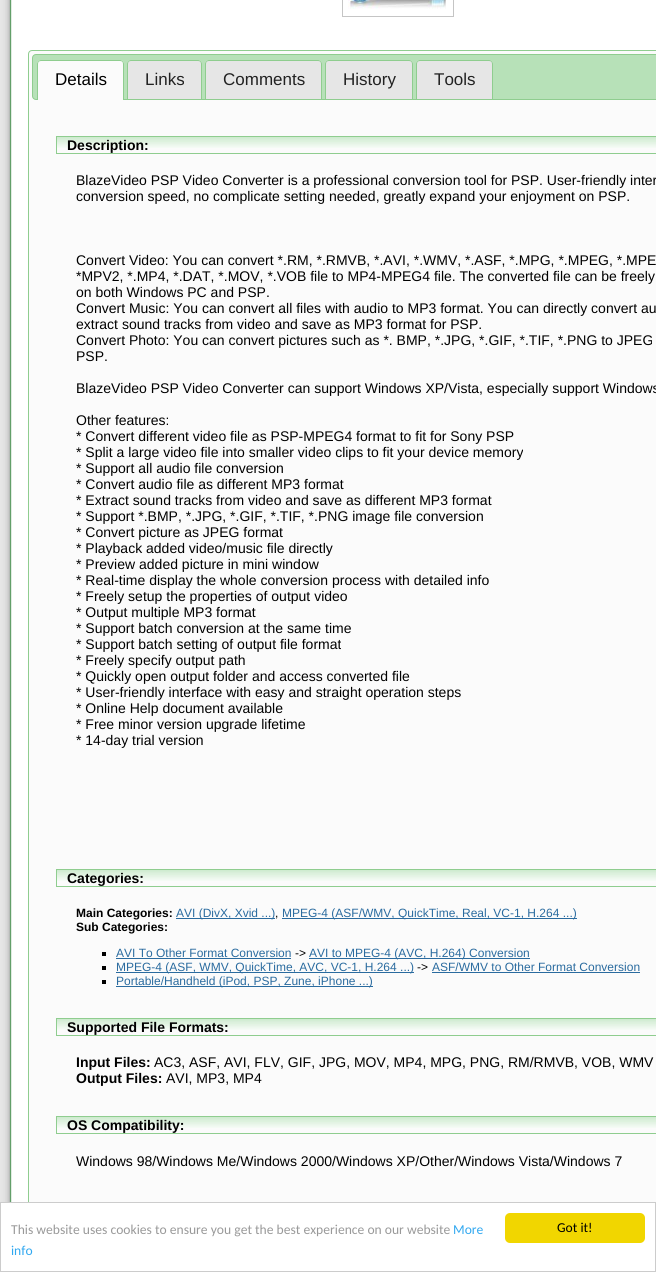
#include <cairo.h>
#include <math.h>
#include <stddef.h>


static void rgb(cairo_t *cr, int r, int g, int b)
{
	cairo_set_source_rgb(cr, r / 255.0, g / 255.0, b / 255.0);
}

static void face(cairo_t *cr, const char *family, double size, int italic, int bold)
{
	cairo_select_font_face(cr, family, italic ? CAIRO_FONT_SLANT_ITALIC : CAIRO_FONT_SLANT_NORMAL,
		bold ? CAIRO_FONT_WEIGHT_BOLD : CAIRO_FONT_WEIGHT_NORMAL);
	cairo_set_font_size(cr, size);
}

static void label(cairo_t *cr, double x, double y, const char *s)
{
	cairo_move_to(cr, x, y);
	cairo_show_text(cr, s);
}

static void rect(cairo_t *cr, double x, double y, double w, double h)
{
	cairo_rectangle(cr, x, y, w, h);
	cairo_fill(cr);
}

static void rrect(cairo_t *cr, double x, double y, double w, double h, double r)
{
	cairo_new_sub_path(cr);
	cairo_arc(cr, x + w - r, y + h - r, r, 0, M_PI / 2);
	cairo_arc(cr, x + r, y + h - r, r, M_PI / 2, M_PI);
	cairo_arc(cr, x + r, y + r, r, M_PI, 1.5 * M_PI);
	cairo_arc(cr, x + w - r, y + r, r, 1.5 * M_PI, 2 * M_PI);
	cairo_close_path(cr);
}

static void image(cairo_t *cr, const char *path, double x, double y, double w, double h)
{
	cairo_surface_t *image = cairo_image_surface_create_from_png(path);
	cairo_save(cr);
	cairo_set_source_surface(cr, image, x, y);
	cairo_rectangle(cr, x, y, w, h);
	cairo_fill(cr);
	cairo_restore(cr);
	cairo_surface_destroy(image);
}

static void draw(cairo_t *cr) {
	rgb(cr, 255, 255, 255);
	cairo_paint(cr);
	image(cr, "image0.png", 0, 0, 12, 1202);
	cairo_rectangle(cr, 342.5, -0.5, 111, 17);
	rgb(cr, 197, 197, 197);
	cairo_set_line_width(cr, 1);
	cairo_stroke(cr);
	image(cr, "image1.png", 348, 0, 98, 9);
	rgb(cr, 251, 251, 251);
	rrect(cr, 28.5, 50.5, 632, 1169, 3.5);
	cairo_fill_preserve(cr);
	rgb(cr, 143, 205, 143);
	cairo_stroke(cr);
	rgb(cr, 183, 225, 184);
	rrect(cr, 32.5, 54.5, 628, 45, 3.5);
	cairo_fill_preserve(cr);
	rgb(cr, 143, 205, 143);
	cairo_stroke(cr);
	rgb(cr, 251, 251, 251);
	cairo_new_path(cr);
	cairo_move_to(cr, 41, 60);
	cairo_line_to(cr, 120, 60);
	cairo_curve_to(cr, 122, 60, 124, 62, 124, 64);
	cairo_line_to(cr, 124, 100);
	cairo_line_to(cr, 37, 100);
	cairo_line_to(cr, 37, 64);
	cairo_curve_to(cr, 37, 62, 39, 60, 41, 60);
	cairo_close_path(cr);
	cairo_fill(cr);
	rgb(cr, 143, 205, 143);
	cairo_set_fill_rule(cr, CAIRO_FILL_RULE_EVEN_ODD);
	cairo_new_path(cr);
	cairo_move_to(cr, 41, 60);
	cairo_line_to(cr, 120, 60);
	cairo_curve_to(cr, 122, 60, 124, 62, 124, 64);
	cairo_line_to(cr, 124, 100);
	cairo_line_to(cr, 37, 100);
	cairo_line_to(cr, 37, 64);
	cairo_curve_to(cr, 37, 62, 39, 60, 41, 60);
	cairo_close_path(cr);
	cairo_move_to(cr, 41, 61);
	cairo_line_to(cr, 120, 61);
	cairo_curve_to(cr, 122, 61, 123, 62, 123, 64);
	cairo_line_to(cr, 123, 100);
	cairo_line_to(cr, 38, 100);
	cairo_line_to(cr, 38, 64);
	cairo_curve_to(cr, 38, 62, 39, 61, 41, 61);
	cairo_close_path(cr);
	cairo_fill(cr);
	face(cr, "Liberation Sans", 17, 0, 0);
	rgb(cr, 0, 0, 0);
	label(cr, 55, 85, "Details");
	rgb(cr, 230, 230, 230);
	cairo_new_path(cr);
	cairo_move_to(cr, 131, 60);
	cairo_line_to(cr, 198, 60);
	cairo_curve_to(cr, 200, 60, 202, 62, 202, 64);
	cairo_line_to(cr, 202, 99);
	cairo_line_to(cr, 127, 99);
	cairo_line_to(cr, 127, 64);
	cairo_curve_to(cr, 127, 62, 129, 60, 131, 60);
	cairo_close_path(cr);
	cairo_fill(cr);
	rgb(cr, 143, 205, 143);
	cairo_new_path(cr);
	cairo_move_to(cr, 131, 60);
	cairo_line_to(cr, 198, 60);
	cairo_curve_to(cr, 200, 60, 202, 62, 202, 64);
	cairo_line_to(cr, 202, 99);
	cairo_line_to(cr, 127, 99);
	cairo_line_to(cr, 127, 64);
	cairo_curve_to(cr, 127, 62, 129, 60, 131, 60);
	cairo_close_path(cr);
	cairo_move_to(cr, 131, 61);
	cairo_line_to(cr, 198, 61);
	cairo_curve_to(cr, 200, 61, 201, 62, 201, 64);
	cairo_line_to(cr, 201, 99);
	cairo_line_to(cr, 128, 99);
	cairo_line_to(cr, 128, 64);
	cairo_curve_to(cr, 128, 62, 129, 61, 131, 61);
	cairo_close_path(cr);
	cairo_fill(cr);
	rgb(cr, 34, 34, 34);
	label(cr, 145, 85, "Links");
	rgb(cr, 230, 230, 230);
	cairo_new_path(cr);
	cairo_move_to(cr, 209, 60);
	cairo_line_to(cr, 318, 60);
	cairo_curve_to(cr, 320, 60, 322, 62, 322, 64);
	cairo_line_to(cr, 322, 99);
	cairo_line_to(cr, 205, 99);
	cairo_line_to(cr, 205, 64);
	cairo_curve_to(cr, 205, 62, 207, 60, 209, 60);
	cairo_close_path(cr);
	cairo_fill(cr);
	rgb(cr, 143, 205, 143);
	cairo_new_path(cr);
	cairo_move_to(cr, 209, 60);
	cairo_line_to(cr, 318, 60);
	cairo_curve_to(cr, 320, 60, 322, 62, 322, 64);
	cairo_line_to(cr, 322, 99);
	cairo_line_to(cr, 205, 99);
	cairo_line_to(cr, 205, 64);
	cairo_curve_to(cr, 205, 62, 207, 60, 209, 60);
	cairo_close_path(cr);
	cairo_move_to(cr, 209, 61);
	cairo_line_to(cr, 318, 61);
	cairo_curve_to(cr, 320, 61, 321, 62, 321, 64);
	cairo_line_to(cr, 321, 99);
	cairo_line_to(cr, 206, 99);
	cairo_line_to(cr, 206, 64);
	cairo_curve_to(cr, 206, 62, 207, 61, 209, 61);
	cairo_close_path(cr);
	cairo_fill(cr);
	rgb(cr, 34, 34, 34);
	label(cr, 223, 85, "Comments");
	rgb(cr, 230, 230, 230);
	cairo_new_path(cr);
	cairo_move_to(cr, 329, 60);
	cairo_line_to(cr, 409, 60);
	cairo_curve_to(cr, 411, 60, 413, 62, 413, 64);
	cairo_line_to(cr, 413, 99);
	cairo_line_to(cr, 325, 99);
	cairo_line_to(cr, 325, 64);
	cairo_curve_to(cr, 325, 62, 327, 60, 329, 60);
	cairo_close_path(cr);
	cairo_fill(cr);
	rgb(cr, 143, 205, 143);
	cairo_new_path(cr);
	cairo_move_to(cr, 329, 60);
	cairo_line_to(cr, 409, 60);
	cairo_curve_to(cr, 411, 60, 413, 62, 413, 64);
	cairo_line_to(cr, 413, 99);
	cairo_line_to(cr, 325, 99);
	cairo_line_to(cr, 325, 64);
	cairo_curve_to(cr, 325, 62, 327, 60, 329, 60);
	cairo_close_path(cr);
	cairo_move_to(cr, 329, 61);
	cairo_line_to(cr, 409, 61);
	cairo_curve_to(cr, 411, 61, 412, 62, 412, 64);
	cairo_line_to(cr, 412, 99);
	cairo_line_to(cr, 326, 99);
	cairo_line_to(cr, 326, 64);
	cairo_curve_to(cr, 326, 62, 327, 61, 329, 61);
	cairo_close_path(cr);
	cairo_fill(cr);
	rgb(cr, 34, 34, 34);
	label(cr, 343, 85, "History");
	rgb(cr, 230, 230, 230);
	cairo_new_path(cr);
	cairo_move_to(cr, 420, 60);
	cairo_line_to(cr, 489, 60);
	cairo_curve_to(cr, 491, 60, 493, 62, 493, 64);
	cairo_line_to(cr, 493, 99);
	cairo_line_to(cr, 416, 99);
	cairo_line_to(cr, 416, 64);
	cairo_curve_to(cr, 416, 62, 418, 60, 420, 60);
	cairo_close_path(cr);
	cairo_fill(cr);
	rgb(cr, 143, 205, 143);
	cairo_new_path(cr);
	cairo_move_to(cr, 420, 60);
	cairo_line_to(cr, 489, 60);
	cairo_curve_to(cr, 491, 60, 493, 62, 493, 64);
	cairo_line_to(cr, 493, 99);
	cairo_line_to(cr, 416, 99);
	cairo_line_to(cr, 416, 64);
	cairo_curve_to(cr, 416, 62, 418, 60, 420, 60);
	cairo_close_path(cr);
	cairo_move_to(cr, 420, 61);
	cairo_line_to(cr, 489, 61);
	cairo_curve_to(cr, 491, 61, 492, 62, 492, 64);
	cairo_line_to(cr, 492, 99);
	cairo_line_to(cr, 417, 99);
	cairo_line_to(cr, 417, 64);
	cairo_curve_to(cr, 417, 62, 418, 61, 420, 61);
	cairo_close_path(cr);
	cairo_fill(cr);
	rgb(cr, 34, 34, 34);
	label(cr, 434, 85, "Tools");
	image(cr, "image2.png", 57, 137, 599, 11);
	cairo_rectangle(cr, 56.5, 136.5, 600, 17);
	rgb(cr, 143, 205, 143);
	cairo_stroke(cr);
	face(cr, "Liberation Sans", 14, 0, 1);
	rgb(cr, 0, 0, 0);
	label(cr, 67, 150, "Description:");
	face(cr, "Liberation Sans", 14, 0, 0);
	label(cr, 76, 185, "BlazeVideo PSP Video Converter is a professional conversion tool for PSP. User-friendly inter");
	label(cr, 76, 201, "conversion speed, no complicate setting needed, greatly expand your enjoyment on PSP.");
	label(cr, 76, 265, "Convert Video: You can convert *.RM, *.RMVB, *.AVI, *.WMV, *.ASF, *.MPG, *.MPEG, *.MPE");
	label(cr, 76, 281, "*MPV2, *.MP4, *.DAT, *.MOV, *.VOB file to MP4-MPEG4 file. The converted file can be freely");
	label(cr, 76, 297, "on both Windows PC and PSP.");
	label(cr, 76, 313, "Convert Music: You can convert all files with audio to MP3 format. You can directly convert au");
	label(cr, 76, 329, "extract sound tracks from video and save as MP3 format for PSP.");
	label(cr, 76, 345, "Convert Photo: You can convert pictures such as *. BMP, *.JPG, *.GIF, *.TIF, *.PNG to JPEG");
	label(cr, 76, 361, "PSP.");
	label(cr, 76, 393, "BlazeVideo PSP Video Converter can support Windows XP/Vista, especially support Windows");
	label(cr, 76, 425, "Other features:");
	label(cr, 76, 441, "* Convert different video file as PSP-MPEG4 format to fit for Sony PSP");
	label(cr, 76, 457, "* Split a large video file into smaller video clips to fit your device memory");
	label(cr, 76, 473, "* Support all audio file conversion");
	label(cr, 76, 489, "* Convert audio file as different MP3 format");
	label(cr, 76, 505, "* Extract sound tracks from video and save as different MP3 format");
	label(cr, 76, 521, "* Support *.BMP, *.JPG, *.GIF, *.TIF, *.PNG image file conversion");
	label(cr, 76, 537, "* Convert picture as JPEG format");
	label(cr, 76, 553, "* Playback added video/music file directly");
	label(cr, 76, 569, "* Preview added picture in mini window");
	label(cr, 76, 585, "* Real-time display the whole conversion process with detailed info");
	label(cr, 76, 601, "* Freely setup the properties of output video");
	label(cr, 76, 617, "* Output multiple MP3 format");
	label(cr, 76, 633, "* Support batch conversion at the same time");
	label(cr, 76, 649, "* Support batch setting of output file format");
	label(cr, 76, 665, "* Freely specify output path");
	label(cr, 76, 681, "* Quickly open output folder and access converted file");
	label(cr, 76, 697, "* User-friendly interface with easy and straight operation steps");
	label(cr, 76, 713, "* Online Help document available");
	label(cr, 76, 729, "* Free minor version upgrade lifetime");
	label(cr, 76, 745, "* 14-day trial version");
	image(cr, "image2.png", 57, 870, 599, 11);
	cairo_rectangle(cr, 56.5, 869.5, 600, 17);
	rgb(cr, 143, 205, 143);
	cairo_stroke(cr);
	face(cr, "Liberation Sans", 14, 0, 1);
	rgb(cr, 0, 0, 0);
	label(cr, 67, 883, "Categories:");
	face(cr, "Liberation Sans", 12, 0, 1);
	label(cr, 76, 917, "Main Categories:");
	rgb(cr, 42, 107, 159);
	rect(cr, 176, 918, 99, 1);
	face(cr, "Liberation Sans", 12, 0, 0);
	label(cr, 176, 917, "AVI (DivX, Xvid ...)");
	rgb(cr, 0, 0, 0);
	label(cr, 275, 917, ",");
	rgb(cr, 42, 107, 159);
	rect(cr, 282, 918, 295, 1);
	label(cr, 282, 917, "MPEG-4 (ASF/WMV, QuickTime, Real, VC-1, H.264 ...)");
	face(cr, "Liberation Sans", 12, 0, 1);
	rgb(cr, 0, 0, 0);
	label(cr, 76, 931, "Sub Categories:");
	rect(cr, 102, 952, 4, 4);
	face(cr, "Liberation Sans", 12, 0, 0);
	rgb(cr, 42, 107, 159);
	label(cr, 116, 957, "AVI To Other Format Conversion");
	rect(cr, 116, 958, 175, 1);
	rgb(cr, 0, 0, 0);
	label(cr, 295, 957, "->");
	rgb(cr, 42, 107, 159);
	rect(cr, 309, 958, 221, 1);
	label(cr, 309, 957, "AVI to MPEG-4 (AVC, H.264) Conversion");
	rgb(cr, 0, 0, 0);
	rect(cr, 102, 966, 4, 4);
	rgb(cr, 42, 107, 159);
	rect(cr, 116, 972, 298, 1);
	label(cr, 116, 971, "MPEG-4 (ASF, WMV, QuickTime, AVC, VC-1, H.264 ...)");
	rgb(cr, 0, 0, 0);
	label(cr, 417, 971, "->");
	rgb(cr, 42, 107, 159);
	label(cr, 432, 971, "ASF/WMV to Other Format Conversion");
	rect(cr, 432, 972, 208, 1);
	rgb(cr, 0, 0, 0);
	rect(cr, 102, 980, 4, 4);
	rgb(cr, 42, 107, 159);
	rect(cr, 116, 986, 257, 1);
	label(cr, 116, 985, "Portable/Handheld (iPod, PSP, Zune, iPhone ...)");
	image(cr, "image2.png", 57, 1019, 599, 11);
	cairo_rectangle(cr, 56.5, 1018.5, 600, 17);
	rgb(cr, 143, 205, 143);
	cairo_stroke(cr);
	face(cr, "Liberation Sans", 14, 0, 1);
	rgb(cr, 0, 0, 0);
	label(cr, 67, 1032, "Supported File Formats:");
	label(cr, 76, 1067, "Input Files:");
	face(cr, "Liberation Sans", 14, 0, 0);
	label(cr, 154, 1067, "AC3, ASF, AVI, FLV, GIF, JPG, MOV, MP4, MPG, PNG, RM/RMVB, VOB, WMV");
	face(cr, "Liberation Sans", 14, 0, 1);
	label(cr, 76, 1083, "Output Files:");
	face(cr, "Liberation Sans", 14, 0, 0);
	label(cr, 166, 1083, "AVI, MP3, MP4");
	image(cr, "image2.png", 57, 1117, 599, 11);
	cairo_rectangle(cr, 56.5, 1116.5, 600, 17);
	rgb(cr, 143, 205, 143);
	cairo_stroke(cr);
	face(cr, "Liberation Sans", 14, 0, 1);
	rgb(cr, 0, 0, 0);
	label(cr, 67, 1130, "OS Compatibility:");
	face(cr, "Liberation Sans", 14, 0, 0);
	label(cr, 76, 1166, "Windows 98/Windows Me/Windows 2000/Windows XP/Other/Windows Vista/Windows 7");
	rgb(cr, 255, 255, 255);
	rect(cr, 28, 1203, 627, 17);
	cairo_rectangle(cr, 0.5, 1202.5, 655, 69);
	rgb(cr, 204, 204, 204);
	cairo_stroke(cr);
	face(cr, "Carlito", 13.6, 0, 0);
	rgb(cr, 153, 153, 153);
	label(cr, 11, 1234, "This website uses cookies to ensure you get the best experience on our website");
	rgb(cr, 49, 168, 240);
	label(cr, 453, 1234, "More");
	label(cr, 11, 1255, "info");
	rgb(cr, 241, 214, 0);
	rrect(cr, 505, 1213, 140, 30, 5);
	cairo_fill(cr);
	rgb(cr, 0, 0, 0);
	label(cr, 557, 1232, "Got it!");
}

int main(void) {
	cairo_surface_t *surface = cairo_image_surface_create(CAIRO_FORMAT_RGB24, 656, 1272);
	cairo_t *cr = cairo_create(surface);
	cairo_font_options_t *options = cairo_font_options_create();
	cairo_font_options_set_hint_metrics(options, CAIRO_HINT_METRICS_OFF);
	cairo_font_options_set_hint_style(options, CAIRO_HINT_STYLE_NONE);
	cairo_set_font_options(cr, options);
	cairo_set_miter_limit(cr, 4);
	draw(cr);
	cairo_surface_write_to_png(surface, "render.png");
	cairo_font_options_destroy(options);
	cairo_destroy(cr);
	cairo_surface_destroy(surface);
	return 0;
}
